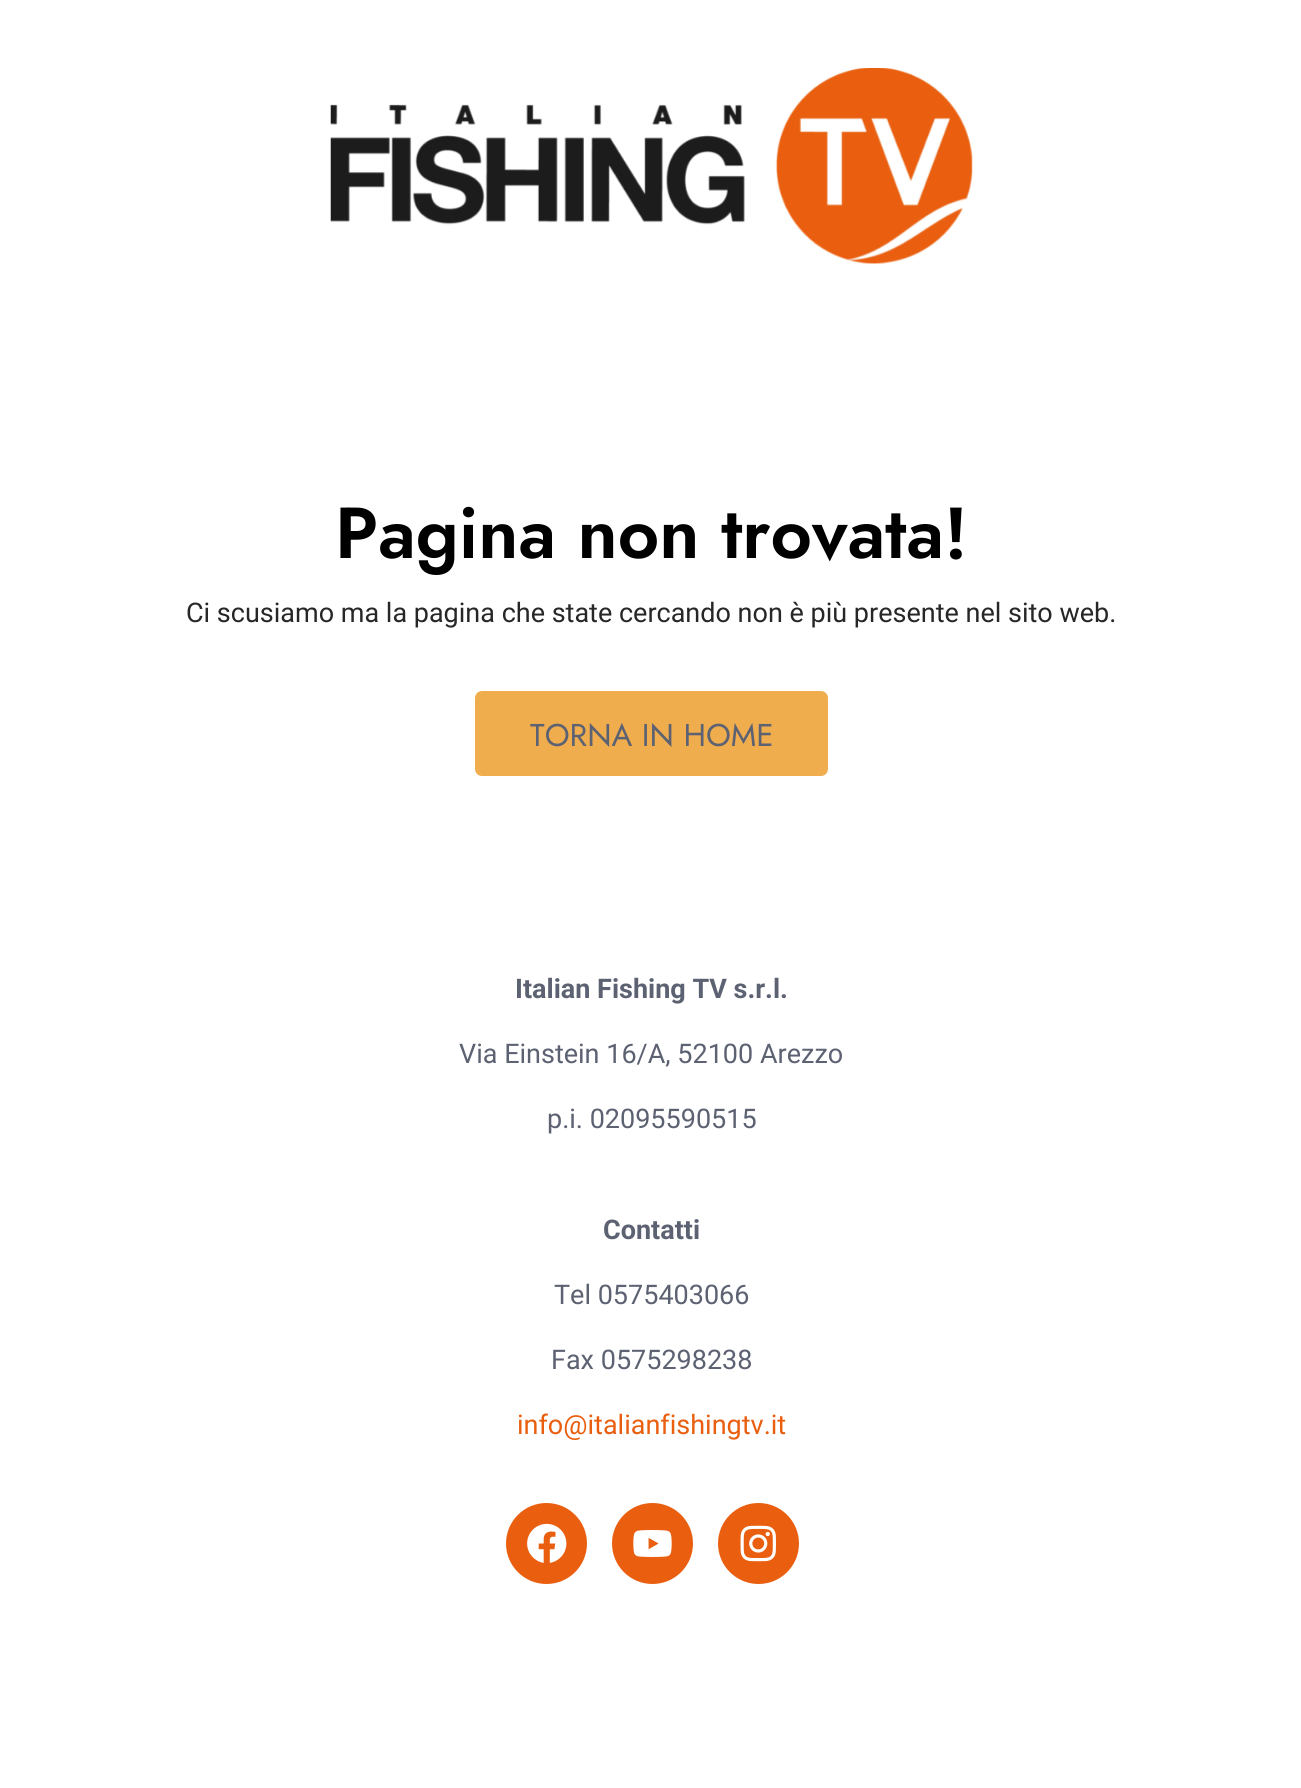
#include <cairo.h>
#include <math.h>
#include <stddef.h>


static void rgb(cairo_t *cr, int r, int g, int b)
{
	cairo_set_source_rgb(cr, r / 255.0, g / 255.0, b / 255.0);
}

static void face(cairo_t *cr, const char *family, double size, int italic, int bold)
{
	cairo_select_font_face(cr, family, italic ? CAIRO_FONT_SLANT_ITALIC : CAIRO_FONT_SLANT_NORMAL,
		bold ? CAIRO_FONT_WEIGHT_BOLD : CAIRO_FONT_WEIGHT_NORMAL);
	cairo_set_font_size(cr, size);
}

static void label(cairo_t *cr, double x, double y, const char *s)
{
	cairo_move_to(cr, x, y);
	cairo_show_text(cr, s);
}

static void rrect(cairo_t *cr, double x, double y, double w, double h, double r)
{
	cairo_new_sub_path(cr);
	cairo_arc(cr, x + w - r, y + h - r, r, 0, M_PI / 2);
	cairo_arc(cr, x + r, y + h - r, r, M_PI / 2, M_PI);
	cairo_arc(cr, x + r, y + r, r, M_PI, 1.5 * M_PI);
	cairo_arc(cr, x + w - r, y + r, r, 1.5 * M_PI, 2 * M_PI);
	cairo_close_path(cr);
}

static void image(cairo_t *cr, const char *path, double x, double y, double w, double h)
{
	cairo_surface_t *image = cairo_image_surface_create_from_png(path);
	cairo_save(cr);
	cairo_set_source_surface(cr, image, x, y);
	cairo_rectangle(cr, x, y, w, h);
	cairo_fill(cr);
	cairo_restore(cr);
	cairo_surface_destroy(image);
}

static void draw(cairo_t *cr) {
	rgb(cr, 255, 255, 255);
	cairo_paint(cr);
	image(cr, "image0.png", 330, 68, 643, 196);
	face(cr, "Jost SemiBold", 72, 0, 0);
	rgb(cr, 0, 0, 0);
	label(cr, 335, 558, "Pagina non trovata!");
	face(cr, "Roboto", 27, 0, 0);
	rgb(cr, 39, 39, 39);
	label(cr, 186, 622, "Ci scusiamo ma la pagina che state cercando non è più presente nel sito web.");
	rgb(cr, 240, 173, 78);
	rrect(cr, 475, 691, 353, 85, 7);
	cairo_fill(cr);
	face(cr, "Jost", 31.5, 0, 0);
	rgb(cr, 93, 98, 115);
	label(cr, 530, 746, "TORNA IN HOME");
	face(cr, "Roboto", 27, 0, 1);
	label(cr, 515, 998, "Italian Fishing TV s.r.l.");
	face(cr, "Roboto", 27, 0, 0);
	label(cr, 459, 1063, "Via Einstein 16/A, 52100 Arezzo");
	label(cr, 547, 1128, "p.i. 02095590515");
	face(cr, "Roboto", 27, 0, 1);
	label(cr, 603, 1239, "Contatti");
	face(cr, "Roboto", 27, 0, 0);
	label(cr, 554, 1304, "Tel 0575403066");
	label(cr, 551, 1369, "Fax 0575298238");
	rgb(cr, 233, 95, 15);
	label(cr, 517, 1434, "info@italianfishingtv.it");
	cairo_new_path(cr);
	cairo_arc(cr, 546.5, 1543.5, 40.5, 0, 2 * M_PI);
	cairo_fill(cr);
	image(cr, "image1.png", 527, 1523, 40, 40);
	cairo_arc(cr, 652.5, 1543.5, 40.5, 0, 2 * M_PI);
	cairo_fill(cr);
	image(cr, "image2.png", 633, 1530, 39, 27);
	cairo_arc(cr, 758.5, 1543.5, 40.5, 0, 2 * M_PI);
	cairo_fill(cr);
	image(cr, "image3.png", 740, 1525, 36, 37);
}

int main(void) {
	cairo_surface_t *surface = cairo_image_surface_create(CAIRO_FORMAT_RGB24, 1301, 1788);
	cairo_t *cr = cairo_create(surface);
	cairo_font_options_t *options = cairo_font_options_create();
	cairo_font_options_set_hint_metrics(options, CAIRO_HINT_METRICS_OFF);
	cairo_font_options_set_hint_style(options, CAIRO_HINT_STYLE_NONE);
	cairo_set_font_options(cr, options);
	cairo_set_miter_limit(cr, 4);
	draw(cr);
	cairo_surface_write_to_png(surface, "render.png");
	cairo_font_options_destroy(options);
	cairo_destroy(cr);
	cairo_surface_destroy(surface);
	return 0;
}
